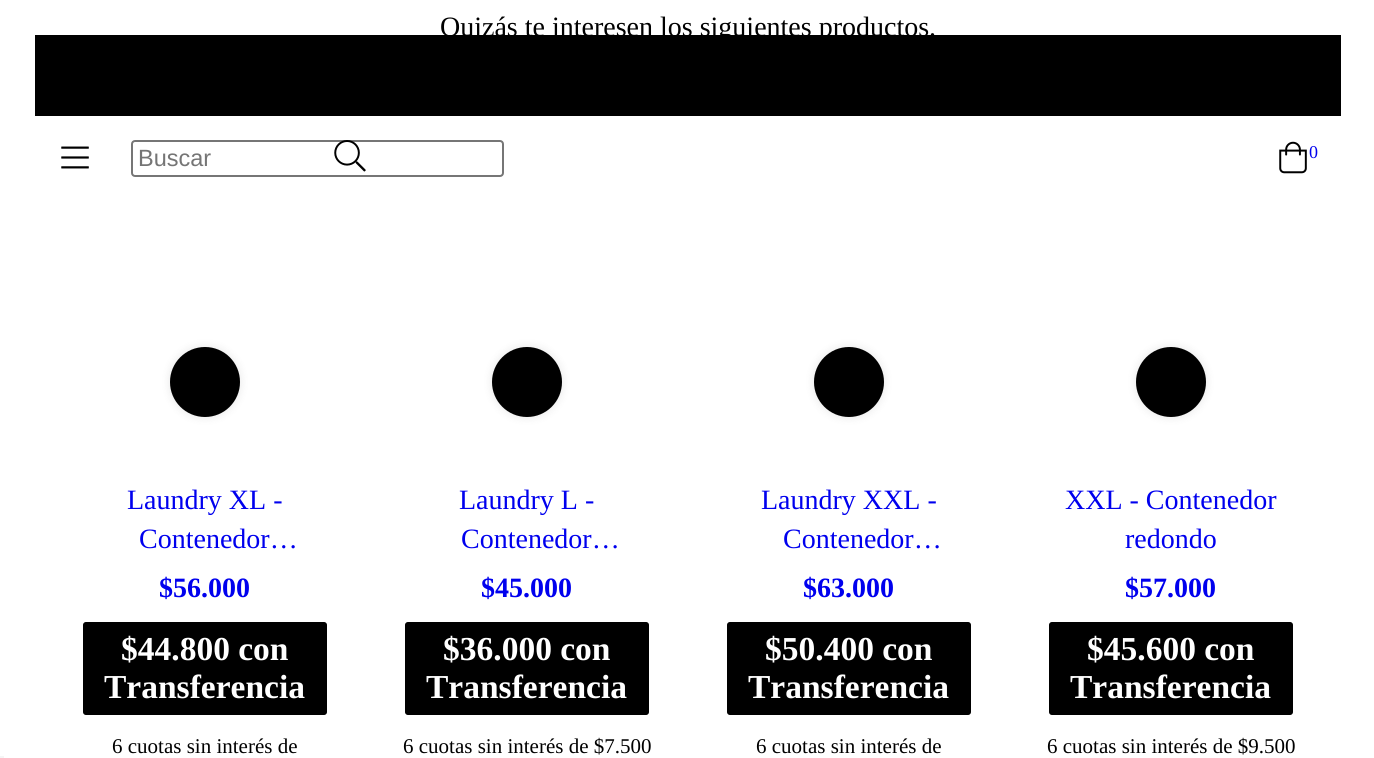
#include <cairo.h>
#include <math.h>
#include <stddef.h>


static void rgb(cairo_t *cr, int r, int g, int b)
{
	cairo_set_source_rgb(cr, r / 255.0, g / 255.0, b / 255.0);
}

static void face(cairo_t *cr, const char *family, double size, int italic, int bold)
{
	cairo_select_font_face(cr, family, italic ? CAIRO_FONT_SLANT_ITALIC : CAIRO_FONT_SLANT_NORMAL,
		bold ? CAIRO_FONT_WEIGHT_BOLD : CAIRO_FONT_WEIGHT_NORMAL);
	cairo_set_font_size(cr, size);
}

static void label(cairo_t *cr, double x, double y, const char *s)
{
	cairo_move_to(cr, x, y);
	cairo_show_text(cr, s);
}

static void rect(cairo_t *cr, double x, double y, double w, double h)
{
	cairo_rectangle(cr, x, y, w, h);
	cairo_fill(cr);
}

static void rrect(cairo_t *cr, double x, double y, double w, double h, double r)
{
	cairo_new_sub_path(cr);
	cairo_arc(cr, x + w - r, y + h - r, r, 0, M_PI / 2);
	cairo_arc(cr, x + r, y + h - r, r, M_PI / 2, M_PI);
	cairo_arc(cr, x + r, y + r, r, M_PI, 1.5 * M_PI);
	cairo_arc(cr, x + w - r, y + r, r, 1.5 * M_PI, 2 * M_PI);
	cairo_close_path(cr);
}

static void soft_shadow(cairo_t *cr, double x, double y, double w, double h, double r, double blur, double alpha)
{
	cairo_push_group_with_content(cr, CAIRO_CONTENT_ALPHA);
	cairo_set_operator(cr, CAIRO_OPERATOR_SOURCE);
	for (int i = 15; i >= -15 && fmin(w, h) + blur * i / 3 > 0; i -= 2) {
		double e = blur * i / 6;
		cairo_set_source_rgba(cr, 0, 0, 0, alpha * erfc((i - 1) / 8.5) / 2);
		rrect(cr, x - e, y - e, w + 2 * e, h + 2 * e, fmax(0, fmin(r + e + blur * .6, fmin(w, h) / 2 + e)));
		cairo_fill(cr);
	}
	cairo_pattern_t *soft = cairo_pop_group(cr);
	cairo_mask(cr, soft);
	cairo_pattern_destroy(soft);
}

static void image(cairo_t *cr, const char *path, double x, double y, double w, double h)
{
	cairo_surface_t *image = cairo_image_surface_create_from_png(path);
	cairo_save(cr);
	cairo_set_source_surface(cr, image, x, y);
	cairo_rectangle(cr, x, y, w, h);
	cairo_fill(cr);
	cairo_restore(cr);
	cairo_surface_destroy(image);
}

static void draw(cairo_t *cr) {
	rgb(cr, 255, 255, 255);
	cairo_paint(cr);
	face(cr, "Liberation Serif", 28, 0, 0);
	rgb(cr, 0, 0, 0);
	label(cr, 440, 36, "Quizás te interesen los siguientes productos.");
	rgb(cr, 0, 0, 0);
	soft_shadow(cr, 170, 347, 70, 70, 35, 4.5, 0.1);
	rgb(cr, 0, 0, 0);
	cairo_arc(cr, 205, 382, 35, 0, 2 * M_PI);
	cairo_fill(cr);
	rgb(cr, 0, 0, 238);
	label(cr, 127, 509, "Laundry XL -");
	label(cr, 139, 548, "Contenedor…");
	face(cr, "Liberation Serif", 28, 0, 1);
	label(cr, 159, 597, "$56.000");
	rgb(cr, 0, 0, 0);
	rrect(cr, 81, 620, 248, 97, 5);
	cairo_fill_preserve(cr);
	rgb(cr, 255, 255, 255);
	cairo_set_line_width(cr, 4);
	cairo_stroke(cr);
	face(cr, "Liberation Serif", 33.5, 0, 1);
	label(cr, 121, 660, "$44.800 con");
	label(cr, 104, 698, "Transferencia");
	face(cr, "Liberation Serif", 21, 0, 0);
	rgb(cr, 0, 0, 0);
	label(cr, 112, 753, "6 cuotas sin interés de");
	rgb(cr, 0, 0, 0);
	soft_shadow(cr, 492, 347, 70, 70, 35, 4.5, 0.1);
	rgb(cr, 0, 0, 0);
	cairo_arc(cr, 527, 382, 35, 0, 2 * M_PI);
	cairo_fill(cr);
	face(cr, "Liberation Serif", 28, 0, 0);
	rgb(cr, 0, 0, 238);
	label(cr, 459, 509, "Laundry L -");
	label(cr, 461, 548, "Contenedor…");
	face(cr, "Liberation Serif", 28, 0, 1);
	label(cr, 481, 597, "$45.000");
	rgb(cr, 0, 0, 0);
	rrect(cr, 403, 620, 248, 97, 5);
	cairo_fill_preserve(cr);
	rgb(cr, 255, 255, 255);
	cairo_stroke(cr);
	face(cr, "Liberation Serif", 33.5, 0, 1);
	label(cr, 443, 660, "$36.000 con");
	label(cr, 426, 698, "Transferencia");
	face(cr, "Liberation Serif", 21, 0, 0);
	rgb(cr, 0, 0, 0);
	label(cr, 403, 753, "6 cuotas sin interés de $7.500");
	rgb(cr, 0, 0, 0);
	soft_shadow(cr, 814, 347, 70, 70, 35, 4.5, 0.1);
	rgb(cr, 0, 0, 0);
	cairo_arc(cr, 849, 382, 35, 0, 2 * M_PI);
	cairo_fill(cr);
	face(cr, "Liberation Serif", 28, 0, 0);
	rgb(cr, 0, 0, 238);
	label(cr, 761, 509, "Laundry XXL -");
	label(cr, 783, 548, "Contenedor…");
	face(cr, "Liberation Serif", 28, 0, 1);
	label(cr, 803, 597, "$63.000");
	rgb(cr, 0, 0, 0);
	rrect(cr, 725, 620, 248, 97, 5);
	cairo_fill_preserve(cr);
	rgb(cr, 255, 255, 255);
	cairo_stroke(cr);
	face(cr, "Liberation Serif", 33.5, 0, 1);
	label(cr, 765, 660, "$50.400 con");
	label(cr, 748, 698, "Transferencia");
	face(cr, "Liberation Serif", 21, 0, 0);
	rgb(cr, 0, 0, 0);
	label(cr, 756, 753, "6 cuotas sin interés de");
	rgb(cr, 0, 0, 0);
	soft_shadow(cr, 1136, 347, 70, 70, 35, 4.5, 0.1);
	rgb(cr, 0, 0, 0);
	cairo_arc(cr, 1171, 382, 35, 0, 2 * M_PI);
	cairo_fill(cr);
	face(cr, "Liberation Serif", 28, 0, 0);
	rgb(cr, 0, 0, 238);
	label(cr, 1065, 509, "XXL - Contenedor");
	label(cr, 1125, 548, "redondo");
	face(cr, "Liberation Serif", 28, 0, 1);
	label(cr, 1125, 597, "$57.000");
	rgb(cr, 0, 0, 0);
	rrect(cr, 1047, 620, 248, 97, 5);
	cairo_fill_preserve(cr);
	rgb(cr, 255, 255, 255);
	cairo_stroke(cr);
	face(cr, "Liberation Serif", 33.5, 0, 1);
	label(cr, 1087, 660, "$45.600 con");
	label(cr, 1070, 698, "Transferencia");
	face(cr, "Liberation Serif", 21, 0, 0);
	rgb(cr, 0, 0, 0);
	label(cr, 1047, 753, "6 cuotas sin interés de $9.500");
	rect(cr, 35, 35, 1306, 81);
	image(cr, "image0.png", 61, 146, 28, 23);
	rrect(cr, 132, 141, 371, 35, 3);
	rgb(cr, 118, 118, 118);
	cairo_set_line_width(cr, 2);
	cairo_stroke(cr);
	face(cr, "Liberation Sans", 23.5, 0, 0);
	rgb(cr, 117, 117, 117);
	label(cr, 138, 166, "Buscar");
	image(cr, "image1.png", 334, 140, 32, 32);
	image(cr, "image2.png", 1279, 141, 28, 33);
	face(cr, "Liberation Serif", 18, 0, 0);
	rgb(cr, 0, 0, 238);
	label(cr, 1309, 158, "0");
	rgb(cr, 245, 245, 245);
	rect(cr, 0, 756, 4, 2);
}

int main(void) {
	cairo_surface_t *surface = cairo_image_surface_create(CAIRO_FORMAT_RGB24, 1374, 758);
	cairo_t *cr = cairo_create(surface);
	cairo_font_options_t *options = cairo_font_options_create();
	cairo_font_options_set_hint_metrics(options, CAIRO_HINT_METRICS_OFF);
	cairo_font_options_set_hint_style(options, CAIRO_HINT_STYLE_NONE);
	cairo_set_font_options(cr, options);
	cairo_set_miter_limit(cr, 4);
	draw(cr);
	cairo_surface_write_to_png(surface, "render.png");
	cairo_font_options_destroy(options);
	cairo_destroy(cr);
	cairo_surface_destroy(surface);
	return 0;
}
